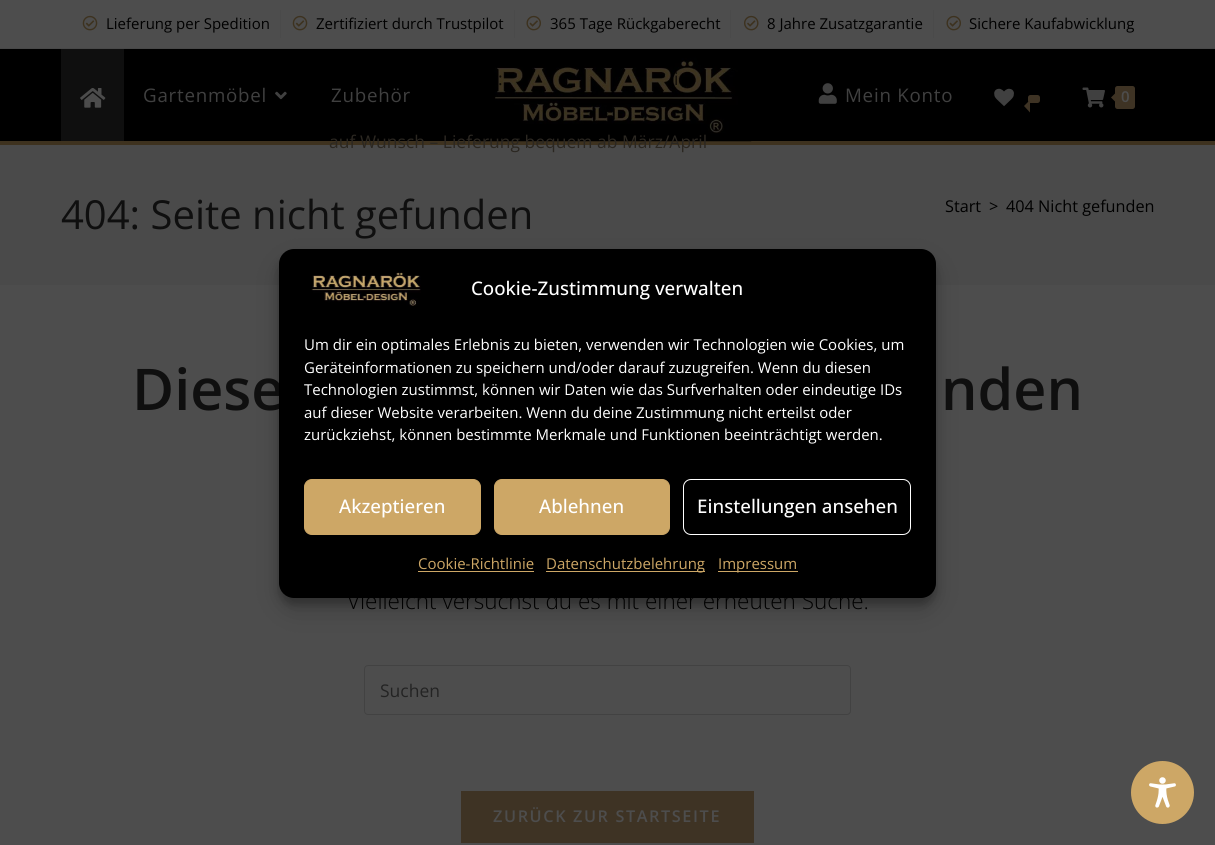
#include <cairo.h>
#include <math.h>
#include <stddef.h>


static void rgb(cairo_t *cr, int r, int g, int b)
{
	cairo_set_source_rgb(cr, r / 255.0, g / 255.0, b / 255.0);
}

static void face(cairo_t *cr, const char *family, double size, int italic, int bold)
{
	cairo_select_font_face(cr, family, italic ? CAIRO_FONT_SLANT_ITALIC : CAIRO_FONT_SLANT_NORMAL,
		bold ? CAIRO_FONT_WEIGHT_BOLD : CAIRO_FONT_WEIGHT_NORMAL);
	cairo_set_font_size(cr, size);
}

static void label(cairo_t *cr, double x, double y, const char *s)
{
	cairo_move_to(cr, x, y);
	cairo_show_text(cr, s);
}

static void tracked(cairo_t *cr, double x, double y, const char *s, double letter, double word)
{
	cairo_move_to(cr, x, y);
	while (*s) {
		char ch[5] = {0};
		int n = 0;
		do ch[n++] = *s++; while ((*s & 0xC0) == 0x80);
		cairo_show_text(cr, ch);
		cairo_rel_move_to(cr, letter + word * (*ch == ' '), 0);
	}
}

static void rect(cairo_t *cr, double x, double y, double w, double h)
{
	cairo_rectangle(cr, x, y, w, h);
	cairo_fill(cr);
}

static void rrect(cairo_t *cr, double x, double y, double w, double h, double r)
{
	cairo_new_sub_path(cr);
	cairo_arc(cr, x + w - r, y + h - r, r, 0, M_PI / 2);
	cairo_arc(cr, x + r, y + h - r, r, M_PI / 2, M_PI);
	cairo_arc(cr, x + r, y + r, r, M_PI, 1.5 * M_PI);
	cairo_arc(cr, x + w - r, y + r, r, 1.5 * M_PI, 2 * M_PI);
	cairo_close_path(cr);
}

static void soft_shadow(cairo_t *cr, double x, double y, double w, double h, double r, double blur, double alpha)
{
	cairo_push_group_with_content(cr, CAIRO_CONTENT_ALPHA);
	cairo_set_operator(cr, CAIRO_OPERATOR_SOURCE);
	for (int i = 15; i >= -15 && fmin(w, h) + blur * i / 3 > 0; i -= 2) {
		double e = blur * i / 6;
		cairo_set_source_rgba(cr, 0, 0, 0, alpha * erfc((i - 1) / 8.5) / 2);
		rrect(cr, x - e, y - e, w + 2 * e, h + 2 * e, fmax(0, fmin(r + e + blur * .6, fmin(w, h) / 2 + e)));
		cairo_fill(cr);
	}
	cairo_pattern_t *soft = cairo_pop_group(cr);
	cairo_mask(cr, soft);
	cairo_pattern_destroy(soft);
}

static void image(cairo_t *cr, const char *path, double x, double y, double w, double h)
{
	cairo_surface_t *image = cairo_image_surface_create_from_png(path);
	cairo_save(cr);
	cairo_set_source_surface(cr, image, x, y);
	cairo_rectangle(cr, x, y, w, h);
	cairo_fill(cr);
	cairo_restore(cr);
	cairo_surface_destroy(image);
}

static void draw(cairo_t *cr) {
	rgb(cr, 77, 77, 77);
	cairo_paint(cr);
	rgb(cr, 72, 72, 72);
	rect(cr, 0, 48, 1215, 1);
	image(cr, "image0.png", 82, 15, 16, 16);
	face(cr, "Open Sans", 15, 0, 0);
	rgb(cr, 0, 0, 0);
	label(cr, 106, 29, "Lieferung per Spedition");
	rgb(cr, 74, 74, 74);
	rect(cr, 280, 10, 1, 28);
	image(cr, "image0.png", 292, 15, 16, 16);
	rgb(cr, 0, 0, 0);
	label(cr, 316, 29, "Zertifiziert durch Trustpilot");
	rgb(cr, 74, 74, 74);
	rect(cr, 514, 10, 1, 28);
	image(cr, "image1.png", 526, 15, 15, 16);
	rgb(cr, 0, 0, 0);
	label(cr, 550, 29, "365 Tage Rückgaberecht");
	rgb(cr, 74, 74, 74);
	rect(cr, 730, 10, 1, 28);
	image(cr, "image2.png", 744, 15, 15, 16);
	rgb(cr, 0, 0, 0);
	label(cr, 767, 29, "8 Jahre Zusatzgarantie");
	rgb(cr, 74, 74, 74);
	rect(cr, 933, 10, 1, 28);
	image(cr, "image1.png", 946, 15, 15, 16);
	rgb(cr, 0, 0, 0);
	label(cr, 969, 29, "Sichere Kaufabwicklung");
	rect(cr, 0, 49, 1215, 92);
	rgb(cr, 62, 50, 31);
	rect(cr, 0, 141, 1215, 4);
	rgb(cr, 15, 15, 15);
	rect(cr, 61, 49, 63, 92);
	image(cr, "image3.png", 80, 88, 26, 20);
	face(cr, "Open Sans", 18.75, 0, 0);
	rgb(cr, 64, 64, 64);
	tracked(cr, 143, 102, "Gartenmöbel", 0.75, 0);
	image(cr, "image4.png", 275, 91, 12, 9);
	tracked(cr, 331, 102, "Zubehör", 0.75, 0);
	image(cr, "image5.png", 476, 49, 276, 93);
	image(cr, "image6.png", 818, 83, 19, 21);
	tracked(cr, 845, 102, "Mein Konto", 0.75, 0);
	image(cr, "image7.png", 994, 88, 20, 19);
	rgb(cr, 62, 51, 36);
	rrect(cr, 1028, 95, 12, 8, 2.5);
	cairo_fill(cr);
	cairo_new_path(cr);
	cairo_move_to(cr, 1030, 100);
	cairo_line_to(cr, 1030, 112.5);
	cairo_line_to(cr, 1024, 106);
	cairo_close_path(cr);
	cairo_fill(cr);
	image(cr, "image8.png", 1082, 87, 23, 21);
	rrect(cr, 1115, 86, 20, 23, 2.5);
	cairo_fill(cr);
	cairo_new_path(cr);
	cairo_move_to(cr, 1117.5, 91);
	cairo_line_to(cr, 1117.5, 104);
	cairo_line_to(cr, 1111, 97.5);
	cairo_close_path(cr);
	cairo_fill(cr);
	face(cr, "Open Sans SemiBold", 15, 0, 0);
	rgb(cr, 77, 77, 77);
	label(cr, 1121, 102, "0");
	rgb(cr, 74, 74, 74);
	rect(cr, 0, 145, 1215, 140);
	face(cr, "Open Sans", 40, 0, 0);
	rgb(cr, 15, 15, 15);
	label(cr, 61, 229, "404: Seite nicht gefunden");
	face(cr, "Open Sans", 16.25, 0, 0);
	rgb(cr, 0, 0, 0);
	label(cr, 945, 212, "Start");
	label(cr, 989, 212, ">");
	label(cr, 1006, 212, "404 Nicht gefunden");
	face(cr, "Open Sans SemiBold", 57.5, 0, 0);
	rgb(cr, 15, 15, 15);
	label(cr, 132, 410, "Diese");
	label(cr, 941, 410, "nden");
	face(cr, "Open Sans Light", 22.5, 0, 0);
	rgb(cr, 0, 0, 0);
	label(cr, 347, 609, "Vielleicht versuchst du es mit einer erneuten Suche.");
	rrect(cr, 364.5, 665.5, 486, 49, 3.5);
	rgb(cr, 66, 66, 66);
	cairo_set_line_width(cr, 1);
	cairo_stroke(cr);
	face(cr, "Open Sans", 17.5, 0, 0);
	rgb(cr, 35, 35, 35);
	label(cr, 380, 697, "Suchen");
	rgb(cr, 62, 51, 36);
	rect(cr, 461, 791, 293, 52);
	face(cr, "Open Sans SemiBold", 16.25, 0, 0);
	rgb(cr, 77, 77, 77);
	tracked(cr, 493, 822, "ZURÜCK ZUR STARTSEITE", 1.6, 0);
	face(cr, "Open Sans", 17.5, 0, 0);
	rgb(cr, 15, 12, 8);
	label(cr, 498, 85, ":");
	label(cr, 674, 85, "i");
	rgb(cr, 43, 39, 33);
	label(cr, 329, 148, "auf Wunsch – Lieferung bequem ab März/April");
	rgb(cr, 0, 0, 0);
	soft_shadow(cr, 279, 256, 657, 349, 15, 4, 0.23);
	soft_shadow(cr, 279, 261, 657, 349, 15, 12.5, 0.19);
	rgb(cr, 0, 0, 0);
	rrect(cr, 279, 249, 657, 349, 15);
	cairo_fill(cr);
	image(cr, "image9.png", 311, 272, 110, 34);
	face(cr, "Open Sans Medium", 18.75, 0, 0);
	rgb(cr, 255, 255, 255);
	label(cr, 471, 295, "Cookie-Zustimmung verwalten");
	face(cr, "Open Sans", 15, 0, 0);
	label(cr, 304, 350, "Um dir ein optimales Erlebnis zu bieten, verwenden wir Technologien wie Cookies, um");
	label(cr, 304, 373, "Geräteinformationen zu speichern und/oder darauf zuzugreifen. Wenn du diesen");
	label(cr, 304, 395, "Technologien zustimmst, können wir Daten wie das Surfverhalten oder eindeutige IDs");
	label(cr, 304, 418, "auf dieser Website verarbeiten. Wenn du deine Zustimmung nicht erteilst oder");
	label(cr, 304, 440, "zurückziehst, können bestimmte Merkmale und Funktionen beeinträchtigt werden.");
	rgb(cr, 205, 167, 102);
	rrect(cr, 304.5, 479.5, 176, 55, 7.5);
	cairo_fill_preserve(cr);
	cairo_stroke(cr);
	face(cr, "Open Sans Medium", 18.75, 0, 0);
	rgb(cr, 255, 255, 255);
	label(cr, 339, 513, "Akzeptieren");
	rgb(cr, 205, 167, 102);
	rrect(cr, 494.5, 479.5, 175, 55, 7.5);
	cairo_fill_preserve(cr);
	cairo_stroke(cr);
	rgb(cr, 255, 255, 255);
	label(cr, 539, 513, "Ablehnen");
	rrect(cr, 683.5, 479.5, 227, 55, 7.5);
	cairo_stroke(cr);
	label(cr, 697, 513, "Einstellungen ansehen");
	face(cr, "Open Sans", 15, 0, 0);
	rgb(cr, 205, 167, 102);
	label(cr, 418, 569, "Cookie-Richtlinie");
	rect(cr, 418, 571, 116, 1);
	rect(cr, 546, 571, 159, 1);
	label(cr, 546, 569, "Datenschutzbelehrung");
	rect(cr, 718, 571, 80, 1);
	label(cr, 718, 569, "Impressum");
	cairo_new_path(cr);
	cairo_arc(cr, 1162.5, 792.5, 31.5, 0, 2 * M_PI);
	cairo_fill(cr);
	image(cr, "image10.png", 1149, 777, 27, 31);
}

int main(void) {
	cairo_surface_t *surface = cairo_image_surface_create(CAIRO_FORMAT_RGB24, 1215, 845);
	cairo_t *cr = cairo_create(surface);
	cairo_font_options_t *options = cairo_font_options_create();
	cairo_font_options_set_hint_metrics(options, CAIRO_HINT_METRICS_OFF);
	cairo_font_options_set_hint_style(options, CAIRO_HINT_STYLE_NONE);
	cairo_set_font_options(cr, options);
	cairo_set_miter_limit(cr, 4);
	draw(cr);
	cairo_surface_write_to_png(surface, "render.png");
	cairo_font_options_destroy(options);
	cairo_destroy(cr);
	cairo_surface_destroy(surface);
	return 0;
}
